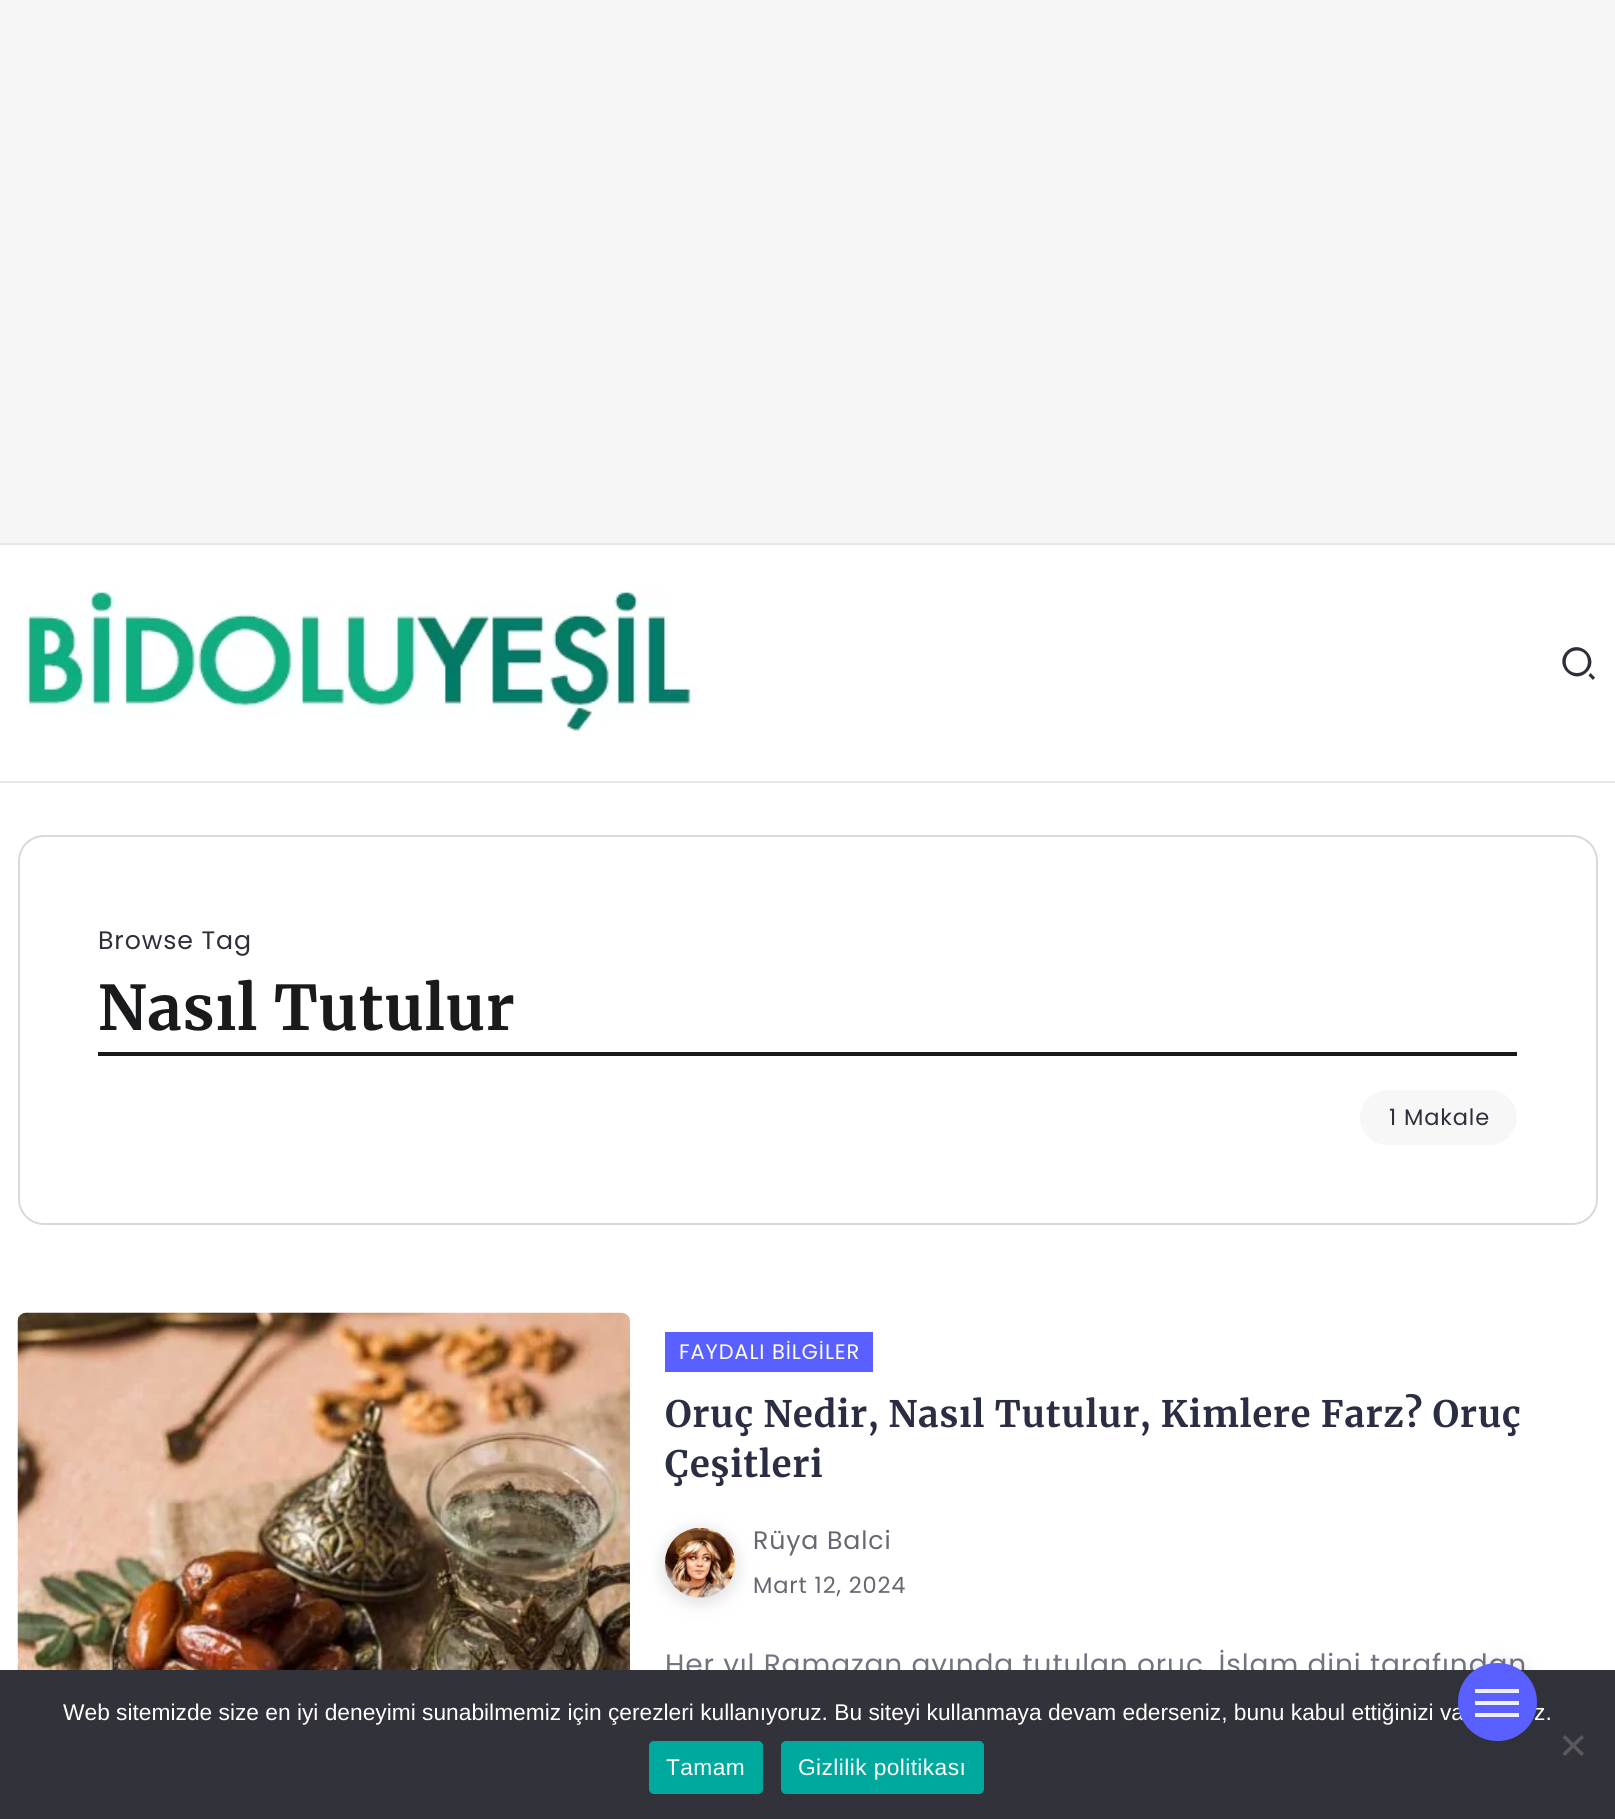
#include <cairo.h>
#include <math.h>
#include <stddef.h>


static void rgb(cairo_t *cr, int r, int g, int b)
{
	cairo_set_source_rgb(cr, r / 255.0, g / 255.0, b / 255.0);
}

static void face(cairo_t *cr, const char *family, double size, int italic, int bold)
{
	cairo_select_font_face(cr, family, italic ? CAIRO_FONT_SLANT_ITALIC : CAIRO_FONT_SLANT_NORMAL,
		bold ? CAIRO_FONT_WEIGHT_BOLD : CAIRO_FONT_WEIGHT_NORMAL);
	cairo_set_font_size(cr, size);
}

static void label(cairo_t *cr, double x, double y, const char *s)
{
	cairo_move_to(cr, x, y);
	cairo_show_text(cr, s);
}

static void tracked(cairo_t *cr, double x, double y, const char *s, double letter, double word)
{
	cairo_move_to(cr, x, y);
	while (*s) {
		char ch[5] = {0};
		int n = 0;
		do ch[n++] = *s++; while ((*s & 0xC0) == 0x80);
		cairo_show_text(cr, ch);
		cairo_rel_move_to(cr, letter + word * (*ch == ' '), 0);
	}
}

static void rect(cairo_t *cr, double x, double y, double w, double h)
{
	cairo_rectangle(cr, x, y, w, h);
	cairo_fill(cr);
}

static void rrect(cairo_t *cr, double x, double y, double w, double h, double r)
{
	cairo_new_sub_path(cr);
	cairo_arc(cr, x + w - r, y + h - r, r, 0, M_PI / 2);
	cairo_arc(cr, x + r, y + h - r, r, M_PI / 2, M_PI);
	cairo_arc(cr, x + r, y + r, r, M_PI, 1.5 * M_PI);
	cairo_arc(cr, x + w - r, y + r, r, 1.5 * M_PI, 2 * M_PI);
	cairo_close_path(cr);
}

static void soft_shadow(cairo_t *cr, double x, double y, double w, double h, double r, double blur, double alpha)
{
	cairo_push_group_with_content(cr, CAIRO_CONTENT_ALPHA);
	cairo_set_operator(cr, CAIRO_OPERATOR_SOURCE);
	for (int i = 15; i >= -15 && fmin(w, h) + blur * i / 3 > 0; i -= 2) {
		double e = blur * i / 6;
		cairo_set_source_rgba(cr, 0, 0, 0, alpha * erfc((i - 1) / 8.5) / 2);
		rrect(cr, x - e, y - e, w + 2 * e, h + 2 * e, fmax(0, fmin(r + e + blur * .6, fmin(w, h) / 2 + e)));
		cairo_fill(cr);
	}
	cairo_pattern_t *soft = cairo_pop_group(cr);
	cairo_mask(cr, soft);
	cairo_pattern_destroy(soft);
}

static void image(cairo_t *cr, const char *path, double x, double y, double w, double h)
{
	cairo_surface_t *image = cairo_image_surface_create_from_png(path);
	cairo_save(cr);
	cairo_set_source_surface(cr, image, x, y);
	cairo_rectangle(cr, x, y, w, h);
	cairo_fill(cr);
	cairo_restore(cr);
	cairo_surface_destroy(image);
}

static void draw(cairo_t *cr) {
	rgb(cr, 255, 255, 255);
	cairo_paint(cr);
	rgb(cr, 246, 246, 246);
	rect(cr, 0, 0, 1615, 543);
	rgb(cr, 231, 231, 231);
	rect(cr, 0, 543, 1615, 2);
	rect(cr, 0, 781, 1615, 2);
	image(cr, "image0.png", 26, 590, 671, 145);
	rgb(cr, 46, 48, 57);
	cairo_new_path(cr);
	cairo_move_to(cr, 1566.5, 651.5);
	cairo_curve_to(cr, 1580, 638, 1600.5, 658.5, 1587, 672);
	cairo_curve_to(cr, 1573.5, 685.5, 1553.5, 665, 1566.5, 651.5);
	cairo_close_path(cr);
	cairo_move_to(cr, 1577, 673);
	cairo_curve_to(cr, 1591.5, 673, 1591.5, 650.5, 1577, 650.5);
	cairo_curve_to(cr, 1562, 650.5, 1562, 673, 1577, 673);
	cairo_close_path(cr);
	cairo_move_to(cr, 1590.5, 673);
	cairo_line_to(cr, 1595, 677.5);
	cairo_line_to(cr, 1593, 680);
	cairo_line_to(cr, 1588.5, 675.5);
	cairo_close_path(cr);
	cairo_fill(cr);
	rrect(cr, 19, 836, 1578, 388, 25);
	rgb(cr, 217, 217, 218);
	cairo_stroke(cr);
	face(cr, "Poppins", 25.25, 0, 0);
	rgb(cr, 46, 48, 57);
	tracked(cr, 98, 949, "Browse Tag", 0.88, 0);
	rgb(cr, 25, 26, 27);
	rect(cr, 98, 1052, 1419, 4);
	face(cr, "Merriweather Light", 61.5, 0, 0);
	tracked(cr, 98, 1030, "Nasıl Tutulur", 0.88, 0);
	rgb(cr, 247, 247, 247);
	rrect(cr, 1360, 1090, 157, 55, 27.5);
	cairo_fill(cr);
	face(cr, "Poppins", 22.5, 0, 0);
	rgb(cr, 46, 48, 57);
	tracked(cr, 1389, 1125, "1 Makale", 0.88, 0);
	image(cr, "image1.png", 17, 1312, 613, 358);
	rgb(cr, 89, 96, 255);
	rect(cr, 665, 1332, 208, 40);
	face(cr, "Poppins", 21, 0, 0);
	rgb(cr, 255, 255, 255);
	tracked(cr, 679, 1359, "FAYDALI BİLGİLER", 0.88, 0);
	face(cr, "Merriweather Light", 36.4, 0, 0);
	rgb(cr, 43, 45, 66);
	tracked(cr, 665, 1427, "Oruç Nedir, Nasıl Tutulur, Kimlere Farz? Oruç", 0.88, 0);
	tracked(cr, 665, 1477, "Çeşitleri", 0.88, 0);
	rgb(cr, 65, 67, 77);
	soft_shadow(cr, 665, 1531, 70, 70, 35, 9, 0.21);
	image(cr, "image2.png", 665, 1527, 70, 71);
	face(cr, "Poppins", 25.25, 0, 0);
	rgb(cr, 102, 103, 112);
	tracked(cr, 753, 1549, "Rüya Balci", 0.88, 0);
	face(cr, "Poppins", 22.5, 0, 0);
	tracked(cr, 753, 1593, "Mart 12, 2024", 0.88, 0);
	face(cr, "Poppins", 28, 0, 0);
	rgb(cr, 113, 115, 127);
	tracked(cr, 665, 1674, "Her yıl Ramazan ayında tutulan oruç, İslam dini tarafından", 0.88, 0);
	rgb(cr, 50, 50, 58);
	rect(cr, 0, 1670, 1615, 149);
	rgb(cr, 89, 89, 93);
	cairo_new_path(cr);
	cairo_move_to(cr, 1581.5, 1735);
	cairo_line_to(cr, 1584, 1737.5);
	cairo_line_to(cr, 1565, 1756);
	cairo_line_to(cr, 1562.5, 1753.5);
	cairo_close_path(cr);
	cairo_fill(cr);
	cairo_new_path(cr);
	cairo_move_to(cr, 1562.5, 1737.5);
	cairo_line_to(cr, 1565, 1735);
	cairo_line_to(cr, 1584, 1753.5);
	cairo_line_to(cr, 1581.5, 1756);
	cairo_close_path(cr);
	cairo_fill(cr);
	rgb(cr, 40, 41, 47);
	soft_shadow(cr, 1458, 1668, 79, 79, 39.5, 10.5, 0.24);
	face(cr, "Liberation Sans", 22.75, 0, 0);
	rgb(cr, 255, 255, 255);
	label(cr, 63, 1720, "Web sitemizde size en iyi deneyimi sunabilmemiz için çerezleri kullanıyoruz. Bu siteyi kullanmaya devam ederseniz, bunu kabul ettiğinizi va");
	label(cr, 1534, 1720, "z.");
	rgb(cr, 89, 96, 255);
	rrect(cr, 1458, 1663, 79, 78, 39);
	cairo_fill(cr);
	rgb(cr, 238, 239, 255);
	rect(cr, 1475, 1689, 44, 4);
	rect(cr, 1475, 1701, 44, 4);
	rect(cr, 1475, 1713, 44, 4);
	rgb(cr, 0, 169, 157);
	rrect(cr, 649, 1741, 114, 53, 5);
	cairo_fill(cr);
	rgb(cr, 255, 255, 255);
	tracked(cr, 666, 1775, "Tamam", 0.4, 0);
	rgb(cr, 0, 169, 157);
	rrect(cr, 781, 1741, 203, 53, 5);
	cairo_fill(cr);
	rgb(cr, 255, 255, 255);
	tracked(cr, 798, 1775, "Gizlilik politikası", 0.4, 0);
}

int main(void) {
	cairo_surface_t *surface = cairo_image_surface_create(CAIRO_FORMAT_RGB24, 1615, 1819);
	cairo_t *cr = cairo_create(surface);
	cairo_font_options_t *options = cairo_font_options_create();
	cairo_font_options_set_hint_metrics(options, CAIRO_HINT_METRICS_OFF);
	cairo_font_options_set_hint_style(options, CAIRO_HINT_STYLE_NONE);
	cairo_set_font_options(cr, options);
	cairo_set_miter_limit(cr, 4);
	draw(cr);
	cairo_surface_write_to_png(surface, "render.png");
	cairo_font_options_destroy(options);
	cairo_destroy(cr);
	cairo_surface_destroy(surface);
	return 0;
}
